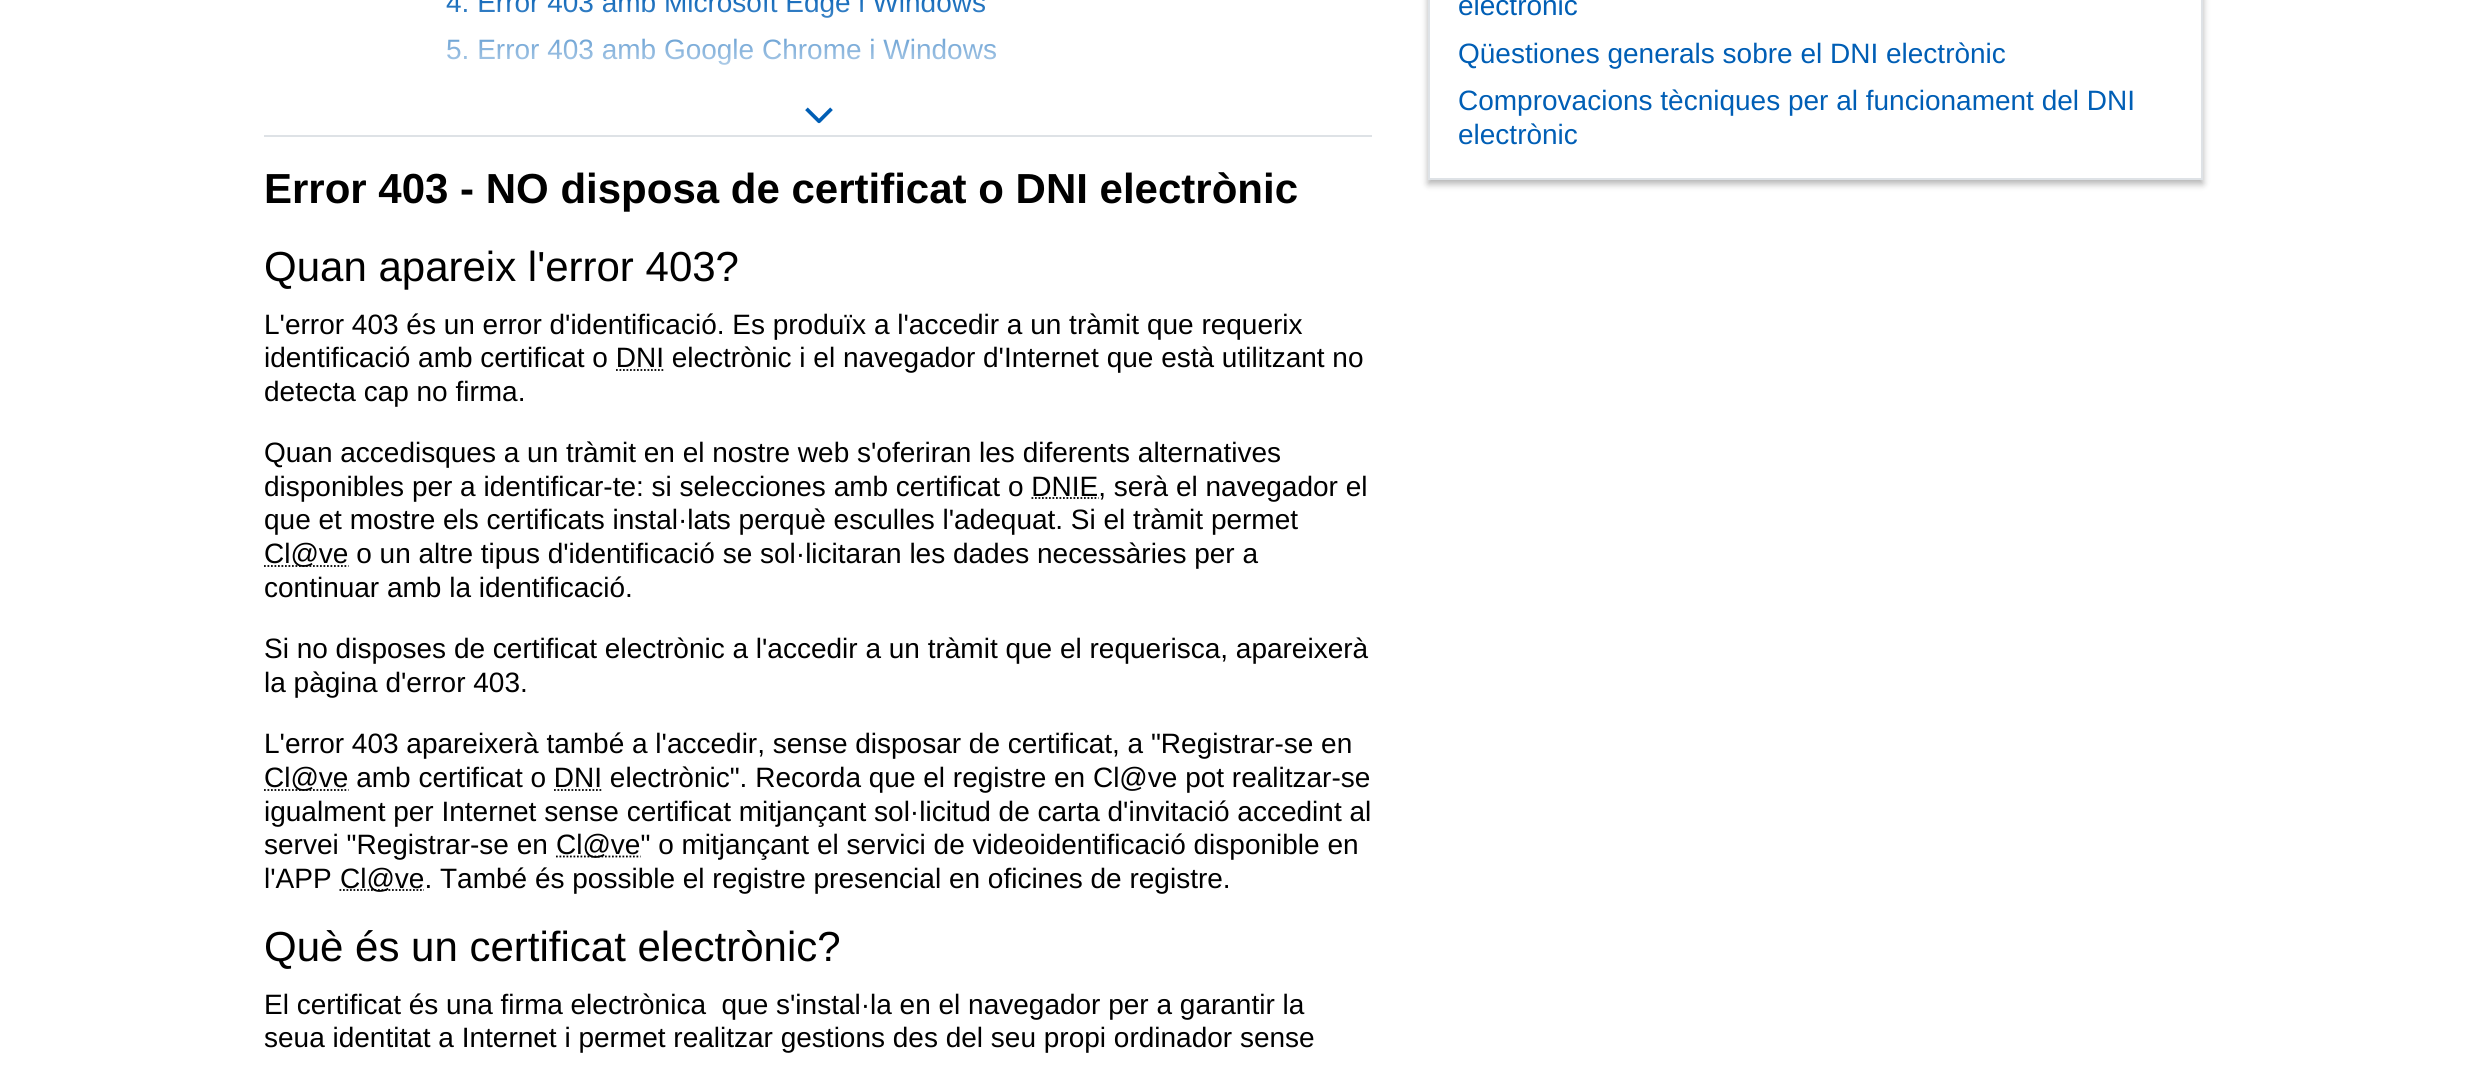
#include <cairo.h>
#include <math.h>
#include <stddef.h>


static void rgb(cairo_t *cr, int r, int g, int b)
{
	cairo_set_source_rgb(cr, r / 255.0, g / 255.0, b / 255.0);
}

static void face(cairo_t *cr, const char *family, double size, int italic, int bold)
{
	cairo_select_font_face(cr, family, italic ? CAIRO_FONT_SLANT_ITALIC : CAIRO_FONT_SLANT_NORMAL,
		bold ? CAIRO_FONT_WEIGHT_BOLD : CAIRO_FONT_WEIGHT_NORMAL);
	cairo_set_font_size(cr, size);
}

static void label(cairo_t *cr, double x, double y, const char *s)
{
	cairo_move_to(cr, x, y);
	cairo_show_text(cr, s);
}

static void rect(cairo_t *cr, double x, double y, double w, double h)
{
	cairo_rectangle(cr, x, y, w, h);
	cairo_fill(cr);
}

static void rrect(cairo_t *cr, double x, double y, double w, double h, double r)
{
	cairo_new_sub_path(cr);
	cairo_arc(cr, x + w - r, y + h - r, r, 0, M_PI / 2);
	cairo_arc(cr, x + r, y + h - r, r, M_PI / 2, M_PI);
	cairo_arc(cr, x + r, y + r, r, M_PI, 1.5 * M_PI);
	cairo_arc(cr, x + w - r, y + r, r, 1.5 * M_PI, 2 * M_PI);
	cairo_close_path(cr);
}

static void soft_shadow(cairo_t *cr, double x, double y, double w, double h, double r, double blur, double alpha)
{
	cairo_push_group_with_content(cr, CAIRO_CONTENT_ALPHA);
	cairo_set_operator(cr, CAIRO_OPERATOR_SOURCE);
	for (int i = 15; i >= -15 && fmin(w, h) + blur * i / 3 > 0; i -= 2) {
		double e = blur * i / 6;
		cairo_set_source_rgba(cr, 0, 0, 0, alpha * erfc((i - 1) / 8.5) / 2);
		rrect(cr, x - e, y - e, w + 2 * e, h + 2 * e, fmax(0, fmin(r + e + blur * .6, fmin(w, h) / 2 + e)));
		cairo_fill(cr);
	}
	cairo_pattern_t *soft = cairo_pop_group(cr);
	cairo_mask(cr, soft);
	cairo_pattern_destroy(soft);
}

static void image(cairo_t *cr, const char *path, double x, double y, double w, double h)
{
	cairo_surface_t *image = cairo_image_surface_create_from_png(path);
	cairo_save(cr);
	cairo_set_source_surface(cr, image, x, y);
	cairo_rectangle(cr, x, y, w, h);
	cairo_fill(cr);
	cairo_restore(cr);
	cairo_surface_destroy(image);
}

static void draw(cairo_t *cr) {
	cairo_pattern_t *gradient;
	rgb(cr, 255, 255, 255);
	cairo_paint(cr);
	rgb(cr, 222, 226, 230);
	rect(cr, 264, 135, 1108, 2);
	face(cr, "Liberation Sans", 28, 0, 0);
	rgb(cr, 0, 94, 181);
	label(cr, 446, 12, "4. Error 403 amb Microsoft Edge i Windows");
	label(cr, 446, 59, "5. Error 403 amb Google Chrome i Windows");
	gradient = cairo_pattern_create_linear(818, 137, 818, -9);
	cairo_pattern_add_color_stop_rgba(gradient, 0.25, 1, 1, 1, 1);
	cairo_pattern_add_color_stop_rgba(gradient, 1, 1, 1, 1, 0);
	cairo_set_source(cr, gradient);
	cairo_pattern_destroy(gradient);
	rect(cr, 446, 0, 550, 65);
	image(cr, "image0.png", 805, 107, 28, 17);
	face(cr, "Liberation Sans", 42, 0, 1);
	rgb(cr, 0, 0, 0);
	label(cr, 264, 203, "Error 403 - NO disposa de certificat o DNI electrònic");
	face(cr, "Liberation Sans", 42, 0, 0);
	label(cr, 264, 281, "Quan apareix l'error 403?");
	face(cr, "Liberation Sans", 28, 0, 0);
	label(cr, 264, 334, "L'error 403 és un error d'identificació. Es produïx a l'accedir a un tràmit que requerix");
	label(cr, 264, 367, "identificació amb certificat o DNI electrònic i el navegador d'Internet que està utilitzant no");
	cairo_new_path(cr);
	cairo_move_to(cr, 616, 370);
	cairo_line_to(cr, 664, 370);
	cairo_set_line_width(cr, 1.8);
	cairo_set_dash(cr, (double[]){1.75, 1.75}, 2, 0);
	cairo_stroke(cr);
	label(cr, 264, 401, "detecta cap no firma.");
	label(cr, 264, 462, "Quan accedisques a un tràmit en el nostre web s'oferiran les diferents alternatives");
	label(cr, 264, 496, "disponibles per a identificar-te: si selecciones amb certificat o DNIE, serà el navegador el");
	cairo_new_path(cr);
	cairo_move_to(cr, 1031.5, 498);
	cairo_line_to(cr, 1098.5, 498);
	cairo_stroke(cr);
	label(cr, 264, 529, "que et mostre els certificats instal·lats perquè esculles l'adequat. Si el tràmit permet");
	cairo_new_path(cr);
	cairo_move_to(cr, 264, 566);
	cairo_line_to(cr, 348.5, 566);
	cairo_stroke(cr);
	label(cr, 264, 563, "Cl@ve o un altre tipus d'identificació se sol·licitaran les dades necessàries per a");
	label(cr, 264, 597, "continuar amb la identificació.");
	label(cr, 264, 658, "Si no disposes de certificat electrònic a l'accedir a un tràmit que el requerisca, apareixerà");
	label(cr, 264, 692, "la pàgina d'error 403.");
	label(cr, 264, 753, "L'error 403 apareixerà també a l'accedir, sense disposar de certificat, a \"Registrar-se en");
	cairo_new_path(cr);
	cairo_move_to(cr, 264, 790);
	cairo_line_to(cr, 348.5, 790);
	cairo_stroke(cr);
	label(cr, 264, 787, "Cl@ve amb certificat o DNI electrònic\". Recorda que el registre en Cl@ve pot realitzar-se");
	cairo_new_path(cr);
	cairo_move_to(cr, 554, 790);
	cairo_line_to(cr, 602.5, 790);
	cairo_stroke(cr);
	label(cr, 264, 821, "igualment per Internet sense certificat mitjançant sol·licitud de carta d'invitació accedint al");
	label(cr, 264, 854, "servei \"Registrar-se en");
	cairo_new_path(cr);
	cairo_move_to(cr, 556, 856.5);
	cairo_line_to(cr, 640.5, 856.5);
	cairo_stroke(cr);
	label(cr, 556, 854, "Cl@ve\" o mitjançant el servici de videoidentificació disponible en");
	label(cr, 264, 888, "l'APP");
	cairo_new_path(cr);
	cairo_move_to(cr, 339.5, 890);
	cairo_line_to(cr, 424, 890);
	cairo_stroke(cr);
	label(cr, 340, 888, "Cl@ve. També és possible el registre presencial en oficines de registre.");
	face(cr, "Liberation Sans", 42, 0, 0);
	label(cr, 264, 961, "Què és un certificat electrònic?");
	face(cr, "Liberation Sans", 28, 0, 0);
	label(cr, 264, 1014, "El certificat és una firma electrònica  que s'instal·la en el navegador per a garantir la");
	label(cr, 264, 1047, "seua identitat a Internet i permet realitzar gestions des del seu propi ordinador sense");
	cairo_save(cr);
	cairo_set_fill_rule(cr, CAIRO_FILL_RULE_EVEN_ODD);
	cairo_new_path(cr);
	cairo_move_to(cr, 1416, 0);
	cairo_line_to(cr, 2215, 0);
	cairo_line_to(cr, 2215, 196);
	cairo_line_to(cr, 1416, 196);
	cairo_close_path(cr);
	cairo_move_to(cr, 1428, -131);
	cairo_line_to(cr, 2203, -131);
	cairo_line_to(cr, 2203, 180);
	cairo_line_to(cr, 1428, 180);
	cairo_close_path(cr);
	cairo_clip(cr);
	rgb(cr, 0, 0, 0);
	soft_shadow(cr, 1428, -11, 775, 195, 0, 3.5, 0.3);
	cairo_restore(cr);
	cairo_rectangle(cr, 1429, -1, 773, 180);
	rgb(cr, 222, 226, 230);
	cairo_set_line_width(cr, 2);
	cairo_set_dash(cr, NULL, 0, 0);
	cairo_stroke(cr);
	rgb(cr, 0, 94, 181);
	label(cr, 1458, 15, "electrònic");
	label(cr, 1458, 63, "Qüestiones generals sobre el DNI electrònic");
	label(cr, 1458, 110, "Comprovacions tècniques per al funcionament del DNI");
	label(cr, 1458, 144, "electrònic");
}

int main(void) {
	cairo_surface_t *surface = cairo_image_surface_create(CAIRO_FORMAT_RGB24, 2466, 1065);
	cairo_t *cr = cairo_create(surface);
	cairo_font_options_t *options = cairo_font_options_create();
	cairo_font_options_set_hint_metrics(options, CAIRO_HINT_METRICS_OFF);
	cairo_font_options_set_hint_style(options, CAIRO_HINT_STYLE_NONE);
	cairo_set_font_options(cr, options);
	cairo_set_miter_limit(cr, 4);
	draw(cr);
	cairo_surface_write_to_png(surface, "render.png");
	cairo_font_options_destroy(options);
	cairo_destroy(cr);
	cairo_surface_destroy(surface);
	return 0;
}
